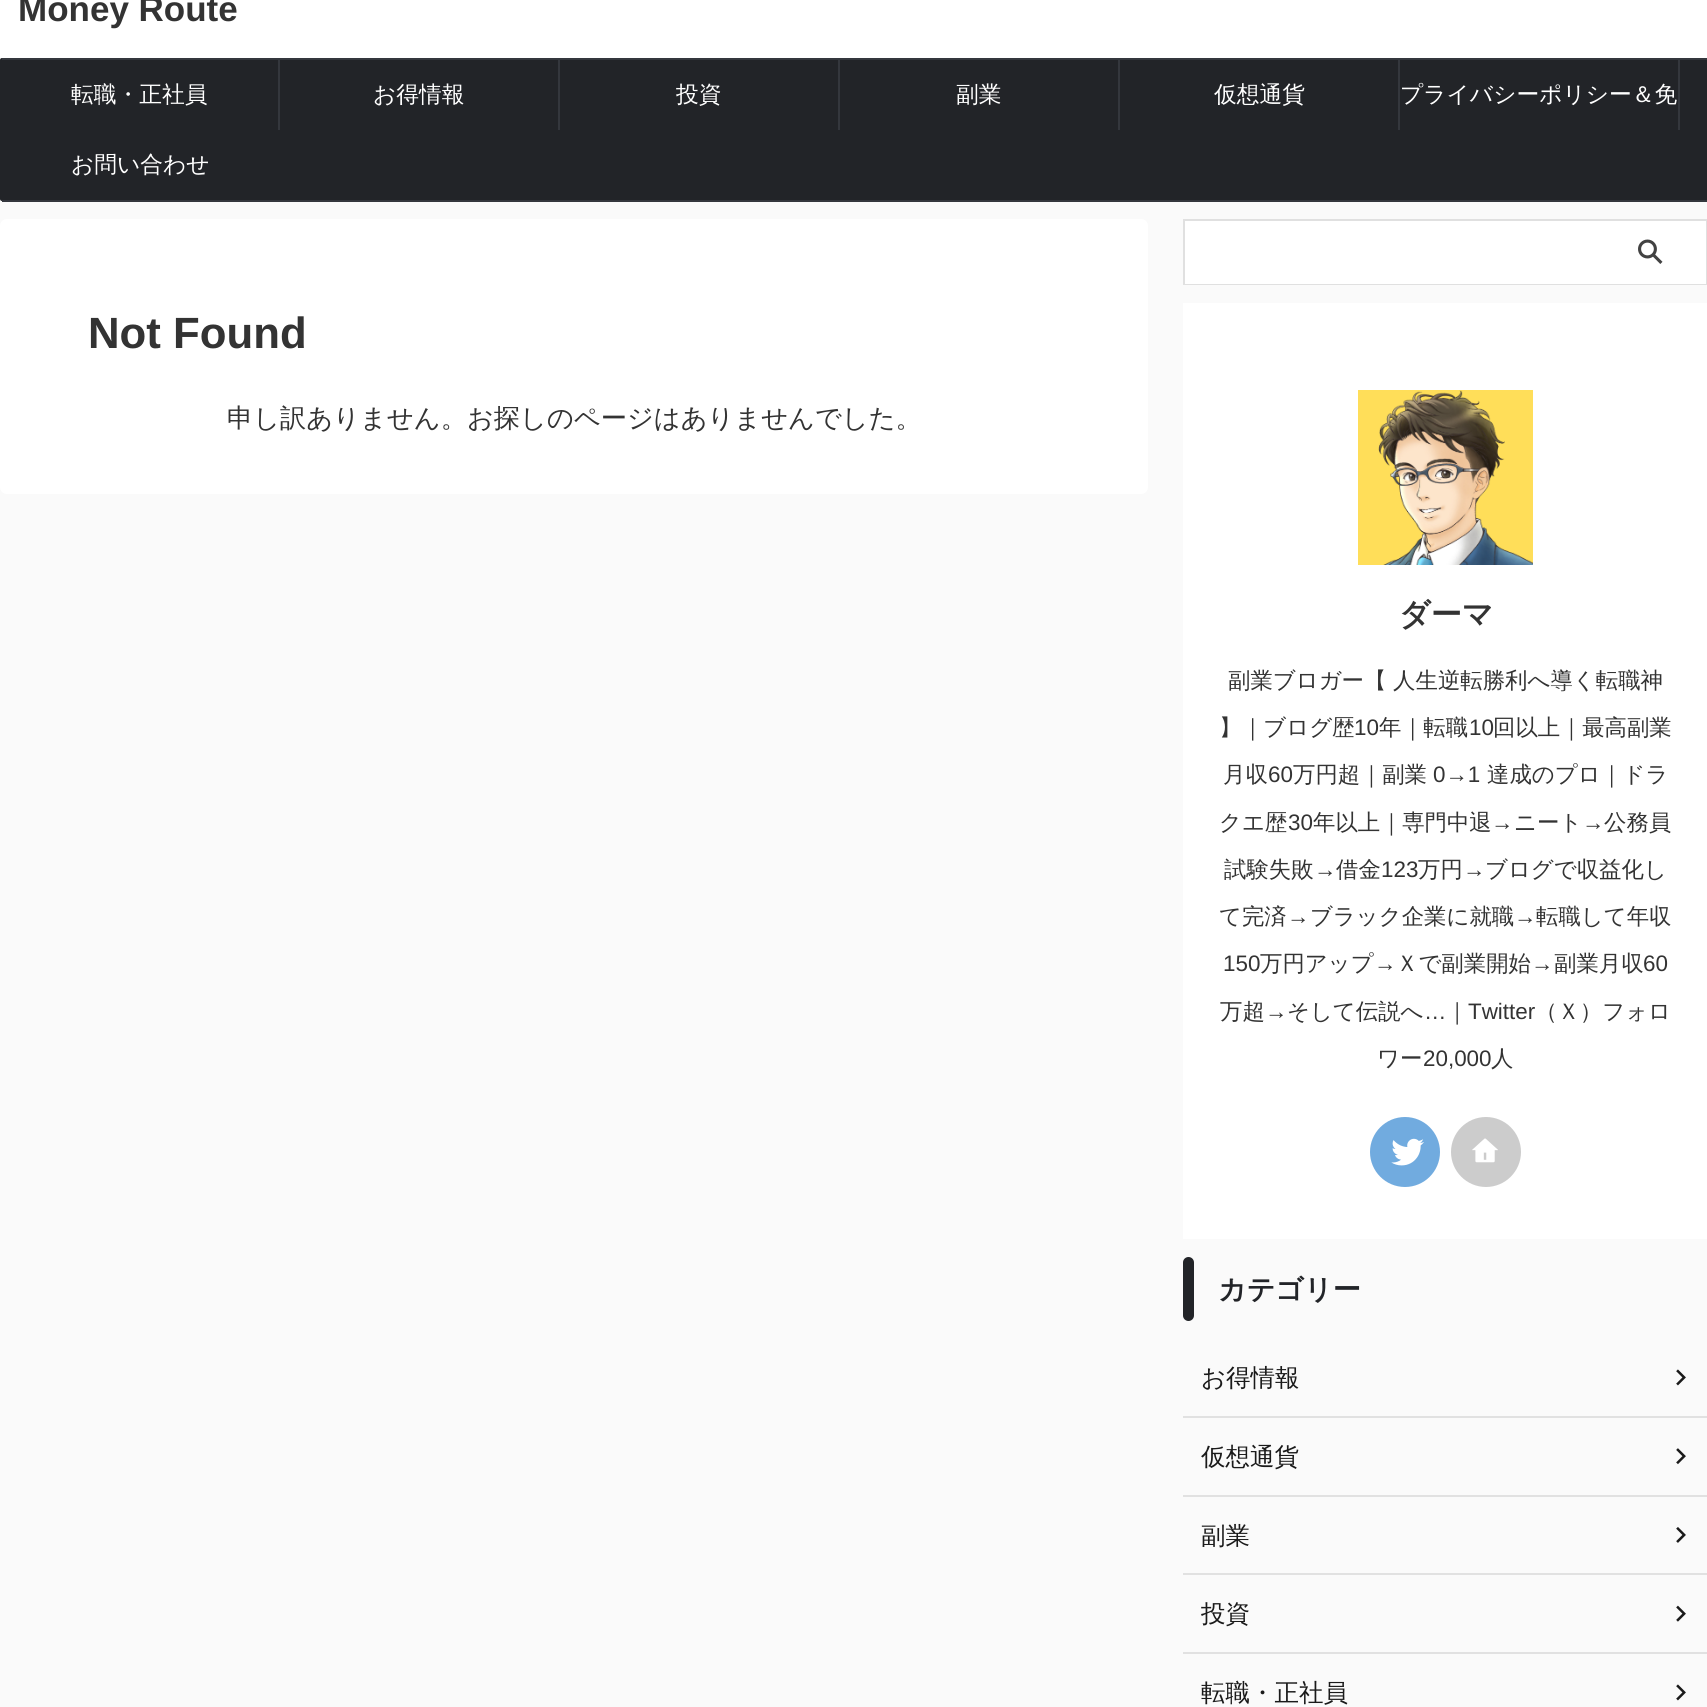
#include <cairo.h>
#include <math.h>
#include <stddef.h>


static void rgb(cairo_t *cr, int r, int g, int b)
{
	cairo_set_source_rgb(cr, r / 255.0, g / 255.0, b / 255.0);
}

static void face(cairo_t *cr, const char *family, double size, int italic, int bold)
{
	cairo_select_font_face(cr, family, italic ? CAIRO_FONT_SLANT_ITALIC : CAIRO_FONT_SLANT_NORMAL,
		bold ? CAIRO_FONT_WEIGHT_BOLD : CAIRO_FONT_WEIGHT_NORMAL);
	cairo_set_font_size(cr, size);
}

static void label(cairo_t *cr, double x, double y, const char *s)
{
	cairo_move_to(cr, x, y);
	cairo_show_text(cr, s);
}

static void rect(cairo_t *cr, double x, double y, double w, double h)
{
	cairo_rectangle(cr, x, y, w, h);
	cairo_fill(cr);
}

static void rrect(cairo_t *cr, double x, double y, double w, double h, double r)
{
	cairo_new_sub_path(cr);
	cairo_arc(cr, x + w - r, y + h - r, r, 0, M_PI / 2);
	cairo_arc(cr, x + r, y + h - r, r, M_PI / 2, M_PI);
	cairo_arc(cr, x + r, y + r, r, M_PI, 1.5 * M_PI);
	cairo_arc(cr, x + w - r, y + r, r, 1.5 * M_PI, 2 * M_PI);
	cairo_close_path(cr);
}

static void image(cairo_t *cr, const char *path, double x, double y, double w, double h)
{
	cairo_surface_t *image = cairo_image_surface_create_from_png(path);
	cairo_save(cr);
	cairo_set_source_surface(cr, image, x, y);
	cairo_rectangle(cr, x, y, w, h);
	cairo_fill(cr);
	cairo_restore(cr);
	cairo_surface_destroy(image);
}

static void draw(cairo_t *cr) {
	rgb(cr, 250, 250, 250);
	cairo_paint(cr);
	rgb(cr, 255, 255, 255);
	rect(cr, 0, 0, 1707, 58);
	face(cr, "Liberation Sans", 35, 0, 1);
	rgb(cr, 51, 51, 51);
	label(cr, 18, 21, "Money Route");
	rgb(cr, 34, 36, 40);
	rrect(cr, 0, 58, 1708, 143, 2);
	cairo_fill(cr);
	rgb(cr, 52, 55, 61);
	rect(cr, 2, 58, 1705, 2);
	rect(cr, 2, 200, 1705, 2);
	rect(cr, 278, 60, 2, 70);
	face(cr, "WenQuanYi Zen Hei Medium", 22.75, 0, 0);
	rgb(cr, 255, 255, 255);
	label(cr, 71, 102, "転職・正社員");
	rgb(cr, 52, 55, 61);
	rect(cr, 558, 60, 2, 70);
	rgb(cr, 255, 255, 255);
	label(cr, 373, 102, "お得情報");
	rgb(cr, 52, 55, 61);
	rect(cr, 838, 60, 2, 70);
	rgb(cr, 255, 255, 255);
	label(cr, 676, 102, "投資");
	rgb(cr, 52, 55, 61);
	rect(cr, 1118, 60, 2, 70);
	rgb(cr, 255, 255, 255);
	label(cr, 956, 102, "副業");
	rgb(cr, 52, 55, 61);
	rect(cr, 1398, 60, 2, 70);
	rgb(cr, 255, 255, 255);
	label(cr, 1214, 102, "仮想通貨");
	rgb(cr, 52, 55, 61);
	rect(cr, 1678, 60, 2, 70);
	rgb(cr, 255, 255, 255);
	label(cr, 1400, 102, "プライバシーポリシー＆免");
	label(cr, 71, 172, "お問い合わせ");
	rrect(cr, 0, 219, 1148, 275, 7);
	cairo_fill(cr);
	face(cr, "Liberation Sans", 43.75, 0, 1);
	rgb(cr, 51, 51, 51);
	label(cr, 88, 348, "Not Found");
	face(cr, "WenQuanYi Zen Hei Medium", 26.25, 0, 0);
	label(cr, 227, 427, "申し訳ありません。お探しのページはありませんでした。");
	cairo_rectangle(cr, 1184, 220, 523, 64);
	rgb(cr, 224, 224, 224);
	cairo_stroke(cr);
	rgb(cr, 255, 255, 255);
	rect(cr, 1185, 221, 521, 63);
	image(cr, "image0.png", 1638, 239, 25, 25);
	rect(cr, 1183, 303, 524, 936);
	image(cr, "image1.png", 1358, 390, 175, 175);
	face(cr, "WenQuanYi Zen Hei", 31, 0, 1);
	rgb(cr, 51, 51, 51);
	label(cr, 1399, 625, "ダーマ");
	face(cr, "WenQuanYi Zen Hei Medium", 22.4, 0, 0);
	label(cr, 1228, 688, "副業ブロガー【 人生逆転勝利へ導く転職神");
	label(cr, 1219, 735, "】｜ブログ歴");
	face(cr, "Liberation Sans", 22.4, 0, 0);
	label(cr, 1354, 735, "10");
	face(cr, "WenQuanYi Zen Hei Medium", 22.4, 0, 0);
	label(cr, 1379, 735, "年｜転職");
	face(cr, "Liberation Sans", 22.4, 0, 0);
	label(cr, 1469, 735, "10");
	face(cr, "WenQuanYi Zen Hei Medium", 22.4, 0, 0);
	label(cr, 1493, 735, "回以上｜最高副業");
	label(cr, 1223, 782, "月収");
	face(cr, "Liberation Sans", 22.4, 0, 0);
	label(cr, 1268, 782, "60");
	face(cr, "WenQuanYi Zen Hei Medium", 22.4, 0, 0);
	label(cr, 1293, 782, "万円超｜副業");
	face(cr, "Liberation Sans", 22.4, 0, 0);
	label(cr, 1433, 782, "0→1");
	face(cr, "WenQuanYi Zen Hei Medium", 22.4, 0, 0);
	label(cr, 1487, 782, "達成のプロ｜ドラ");
	label(cr, 1219, 830, "クエ歴");
	face(cr, "Liberation Sans", 22.4, 0, 0);
	label(cr, 1288, 830, "30");
	face(cr, "WenQuanYi Zen Hei Medium", 22.4, 0, 0);
	label(cr, 1313, 830, "年以上｜専門中退");
	face(cr, "Liberation Sans", 22.4, 0, 0);
	label(cr, 1491, 830, "→");
	face(cr, "WenQuanYi Zen Hei Medium", 22.4, 0, 0);
	label(cr, 1514, 830, "ニート");
	face(cr, "Liberation Sans", 22.4, 0, 0);
	label(cr, 1582, 830, "→");
	face(cr, "WenQuanYi Zen Hei Medium", 22.4, 0, 0);
	label(cr, 1604, 830, "公務員");
	label(cr, 1224, 877, "試験失敗");
	face(cr, "Liberation Sans", 22.4, 0, 0);
	label(cr, 1314, 877, "→");
	face(cr, "WenQuanYi Zen Hei Medium", 22.4, 0, 0);
	label(cr, 1336, 877, "借金");
	face(cr, "Liberation Sans", 22.4, 0, 0);
	label(cr, 1381, 877, "123");
	face(cr, "WenQuanYi Zen Hei Medium", 22.4, 0, 0);
	label(cr, 1418, 877, "万円");
	face(cr, "Liberation Sans", 22.4, 0, 0);
	label(cr, 1463, 877, "→");
	face(cr, "WenQuanYi Zen Hei Medium", 22.4, 0, 0);
	label(cr, 1485, 877, "ブログで収益化し");
	label(cr, 1219, 924, "て完済");
	face(cr, "Liberation Sans", 22.4, 0, 0);
	label(cr, 1287, 924, "→");
	face(cr, "WenQuanYi Zen Hei Medium", 22.4, 0, 0);
	label(cr, 1310, 924, "ブラック企業に就職");
	face(cr, "Liberation Sans", 22.4, 0, 0);
	label(cr, 1514, 924, "→");
	face(cr, "WenQuanYi Zen Hei Medium", 22.4, 0, 0);
	label(cr, 1536, 924, "転職して年収");
	face(cr, "Liberation Sans", 22.4, 0, 0);
	label(cr, 1223, 971, "150");
	face(cr, "WenQuanYi Zen Hei Medium", 22.4, 0, 0);
	label(cr, 1260, 971, "万円アップ");
	face(cr, "Liberation Sans", 22.4, 0, 0);
	label(cr, 1374, 971, "→");
	face(cr, "WenQuanYi Zen Hei Medium", 22.4, 0, 0);
	label(cr, 1396, 971, "Ｘで副業開始");
	face(cr, "Liberation Sans", 22.4, 0, 0);
	label(cr, 1531, 971, "→");
	face(cr, "WenQuanYi Zen Hei Medium", 22.4, 0, 0);
	label(cr, 1554, 971, "副業月収");
	face(cr, "Liberation Sans", 22.4, 0, 0);
	label(cr, 1643, 971, "60");
	face(cr, "WenQuanYi Zen Hei Medium", 22.4, 0, 0);
	label(cr, 1220, 1019, "万超");
	face(cr, "Liberation Sans", 22.4, 0, 0);
	label(cr, 1265, 1019, "→");
	face(cr, "WenQuanYi Zen Hei Medium", 22.4, 0, 0);
	label(cr, 1287, 1019, "そして伝説へ");
	face(cr, "Liberation Sans", 22.4, 0, 0);
	label(cr, 1424, 1019, "…");
	face(cr, "WenQuanYi Zen Hei Medium", 22.4, 0, 0);
	label(cr, 1446, 1019, "｜");
	face(cr, "Liberation Sans", 22.4, 0, 0);
	label(cr, 1468, 1019, "Twitter");
	face(cr, "WenQuanYi Zen Hei Medium", 22.4, 0, 0);
	label(cr, 1535, 1019, "（Ｘ）フォロ");
	label(cr, 1377, 1066, "ワー");
	face(cr, "Liberation Sans", 22.4, 0, 0);
	label(cr, 1423, 1066, "20,000");
	face(cr, "WenQuanYi Zen Hei Medium", 22.4, 0, 0);
	label(cr, 1491, 1066, "人");
	rgb(cr, 113, 171, 223);
	cairo_new_path(cr);
	cairo_arc(cr, 1405, 1152, 35, 0, 2 * M_PI);
	cairo_fill(cr);
	image(cr, "image2.png", 1391, 1138, 33, 28);
	rgb(cr, 204, 204, 204);
	cairo_arc(cr, 1486, 1152, 35, 0, 2 * M_PI);
	cairo_fill(cr);
	image(cr, "image3.png", 1472, 1138, 26, 25);
	rgb(cr, 34, 36, 40);
	rrect(cr, 1183, 1257, 11, 64, 5.5);
	cairo_fill(cr);
	face(cr, "WenQuanYi Zen Hei", 28, 0, 1);
	label(cr, 1218, 1299, "カテゴリー");
	rgb(cr, 225, 225, 225);
	rect(cr, 1183, 1416, 524, 2);
	face(cr, "WenQuanYi Zen Hei Medium", 24.5, 0, 0);
	rgb(cr, 26, 26, 26);
	label(cr, 1201, 1386, "お得情報");
	image(cr, "image4.png", 1676, 1369, 10, 17);
	rgb(cr, 225, 225, 225);
	rect(cr, 1183, 1495, 524, 2);
	rgb(cr, 26, 26, 26);
	label(cr, 1201, 1465, "仮想通貨");
	image(cr, "image5.png", 1676, 1448, 10, 17);
	rgb(cr, 225, 225, 225);
	rect(cr, 1183, 1573, 524, 2);
	rgb(cr, 26, 26, 26);
	label(cr, 1201, 1544, "副業");
	image(cr, "image6.png", 1676, 1527, 10, 16);
	rgb(cr, 225, 225, 225);
	rect(cr, 1183, 1652, 524, 2);
	rgb(cr, 26, 26, 26);
	label(cr, 1201, 1622, "投資");
	image(cr, "image7.png", 1676, 1605, 10, 17);
	label(cr, 1201, 1701, "転職・正社員");
	image(cr, "image4.png", 1676, 1684, 10, 17);
}

int main(void) {
	cairo_surface_t *surface = cairo_image_surface_create(CAIRO_FORMAT_RGB24, 1707, 1707);
	cairo_t *cr = cairo_create(surface);
	cairo_font_options_t *options = cairo_font_options_create();
	cairo_font_options_set_hint_metrics(options, CAIRO_HINT_METRICS_OFF);
	cairo_font_options_set_hint_style(options, CAIRO_HINT_STYLE_NONE);
	cairo_set_font_options(cr, options);
	cairo_set_miter_limit(cr, 4);
	draw(cr);
	cairo_surface_write_to_png(surface, "render.png");
	cairo_font_options_destroy(options);
	cairo_destroy(cr);
	cairo_surface_destroy(surface);
	return 0;
}
